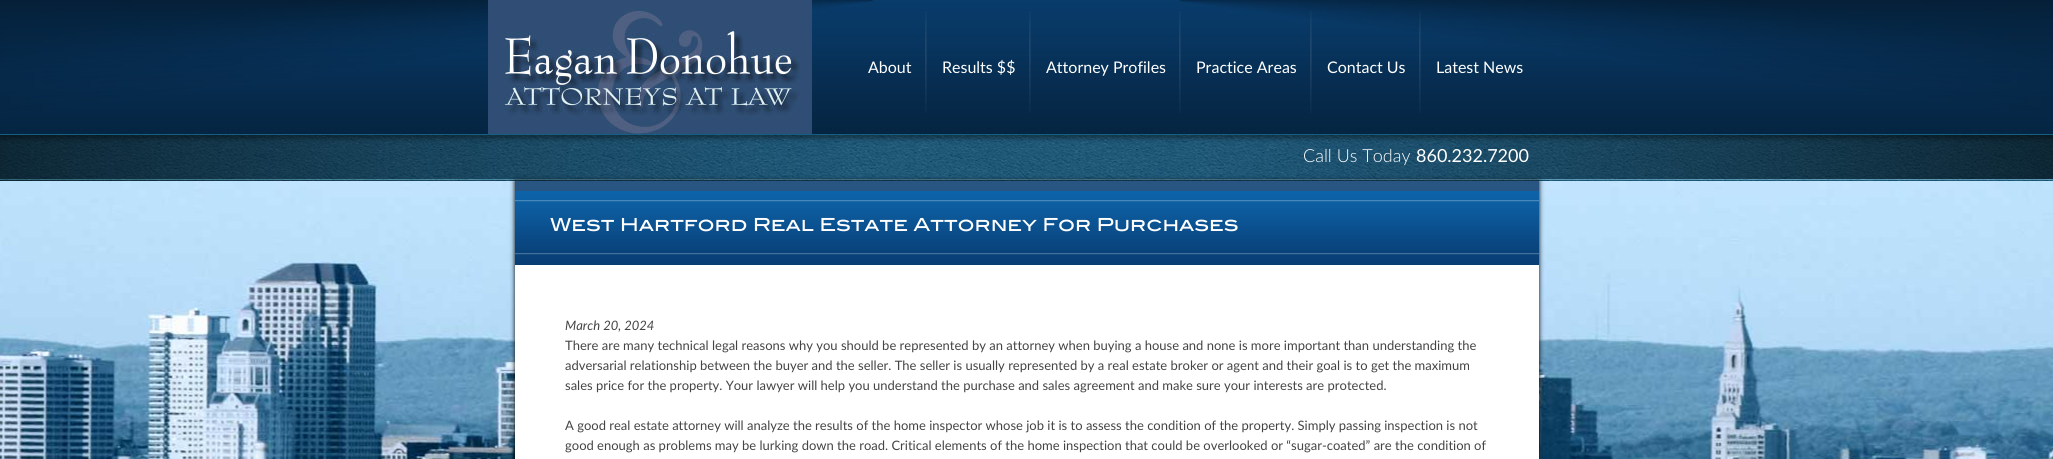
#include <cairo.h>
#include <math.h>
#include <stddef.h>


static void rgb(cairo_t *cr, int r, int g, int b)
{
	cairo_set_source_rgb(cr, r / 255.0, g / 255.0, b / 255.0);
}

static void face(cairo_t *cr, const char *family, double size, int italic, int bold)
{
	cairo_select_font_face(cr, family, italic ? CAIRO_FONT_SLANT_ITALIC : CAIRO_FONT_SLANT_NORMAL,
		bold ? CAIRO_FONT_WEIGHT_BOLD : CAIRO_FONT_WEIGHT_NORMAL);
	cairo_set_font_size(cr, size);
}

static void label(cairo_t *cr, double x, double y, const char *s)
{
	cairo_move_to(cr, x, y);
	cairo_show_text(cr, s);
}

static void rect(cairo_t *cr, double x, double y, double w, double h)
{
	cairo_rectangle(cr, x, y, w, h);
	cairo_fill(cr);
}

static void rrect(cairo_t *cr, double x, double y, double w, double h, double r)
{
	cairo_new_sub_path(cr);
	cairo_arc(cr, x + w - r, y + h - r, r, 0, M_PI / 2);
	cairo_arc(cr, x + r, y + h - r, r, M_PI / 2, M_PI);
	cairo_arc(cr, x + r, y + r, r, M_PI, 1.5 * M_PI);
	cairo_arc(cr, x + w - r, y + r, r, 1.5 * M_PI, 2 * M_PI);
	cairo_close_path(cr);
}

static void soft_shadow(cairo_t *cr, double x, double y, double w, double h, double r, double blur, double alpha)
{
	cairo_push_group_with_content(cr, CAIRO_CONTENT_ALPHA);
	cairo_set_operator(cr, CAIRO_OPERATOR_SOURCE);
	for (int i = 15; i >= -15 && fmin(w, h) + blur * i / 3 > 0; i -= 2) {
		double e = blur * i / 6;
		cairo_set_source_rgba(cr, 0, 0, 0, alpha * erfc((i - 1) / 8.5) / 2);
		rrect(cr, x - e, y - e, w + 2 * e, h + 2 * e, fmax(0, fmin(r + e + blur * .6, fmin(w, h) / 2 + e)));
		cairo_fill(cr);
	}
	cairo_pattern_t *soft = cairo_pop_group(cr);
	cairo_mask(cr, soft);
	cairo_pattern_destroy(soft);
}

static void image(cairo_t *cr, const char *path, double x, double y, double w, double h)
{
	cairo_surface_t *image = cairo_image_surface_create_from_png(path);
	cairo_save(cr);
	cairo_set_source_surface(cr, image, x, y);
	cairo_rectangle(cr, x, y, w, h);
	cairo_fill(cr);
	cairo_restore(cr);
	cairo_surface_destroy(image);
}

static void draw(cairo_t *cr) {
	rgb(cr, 255, 255, 255);
	cairo_paint(cr);
	image(cr, "image0.png", 0, 181, 2053, 278);
	image(cr, "image1.png", 0, 0, 2053, 181);
	image(cr, "image2.png", 488, 0, 324, 134);
	image(cr, "image3.png", 925, 11, 2, 102);
	face(cr, "Lato", 16, 0, 0);
	rgb(cr, 255, 255, 255);
	label(cr, 868, 73, "About");
	image(cr, "image3.png", 1029, 11, 2, 102);
	label(cr, 942, 73, "Results $$");
	image(cr, "image3.png", 1179, 11, 2, 102);
	label(cr, 1046, 73, "Attorney Profiles");
	image(cr, "image4.png", 1310, 11, 2, 102);
	label(cr, 1196, 73, "Practice Areas");
	image(cr, "image5.png", 1419, 11, 2, 102);
	label(cr, 1327, 73, "Contact Us");
	label(cr, 1436, 73, "Latest News");
	face(cr, "Lato Light", 18, 0, 0);
	label(cr, 1303, 162, "Call Us Today");
	face(cr, "Lato", 18, 0, 0);
	label(cr, 1416, 162, "860.232.7200");
	rgb(cr, 0, 0, 0);
	soft_shadow(cr, 515, 181, 1024, 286, 0, 2.5, 1);
	rgb(cr, 40, 85, 129);
	rect(cr, 515, 181, 1024, 10);
	rgb(cr, 255, 255, 255);
	rect(cr, 515, 265, 1024, 194);
	image(cr, "image6.png", 515, 191, 1024, 74);
	face(cr, "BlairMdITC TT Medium", 18, 0, 0);
	label(cr, 550, 231, "West Hartford Real Estate Attorney For Purchases");
	face(cr, "Lato", 13, 1, 0);
	rgb(cr, 68, 68, 68);
	label(cr, 565, 330, "March 20, 2024");
	face(cr, "Lato", 13, 0, 0);
	label(cr, 565, 350, "There are many technical legal reasons why you should be represented by an attorney when buying a house and none is more important than understanding the");
	label(cr, 565, 370, "adversarial relationship between the buyer and the seller. The seller is usually represented by a real estate broker or agent and their goal is to get the maximum");
	label(cr, 565, 390, "sales price for the property. Your lawyer will help you understand the purchase and sales agreement and make sure your interests are protected.");
	label(cr, 565, 430, "A good real estate attorney will analyze the results of the home inspector whose job it is to assess the condition of the property. Simply passing inspection is not");
	label(cr, 565, 450, "good enough as problems may be lurking down the road. Critical elements of the home inspection that could be overlooked or “sugar-coated” are the condition of");
}

int main(void) {
	cairo_surface_t *surface = cairo_image_surface_create(CAIRO_FORMAT_RGB24, 2053, 459);
	cairo_t *cr = cairo_create(surface);
	cairo_font_options_t *options = cairo_font_options_create();
	cairo_font_options_set_hint_metrics(options, CAIRO_HINT_METRICS_OFF);
	cairo_font_options_set_hint_style(options, CAIRO_HINT_STYLE_NONE);
	cairo_set_font_options(cr, options);
	cairo_set_miter_limit(cr, 4);
	draw(cr);
	cairo_surface_write_to_png(surface, "render.png");
	cairo_font_options_destroy(options);
	cairo_destroy(cr);
	cairo_surface_destroy(surface);
	return 0;
}
